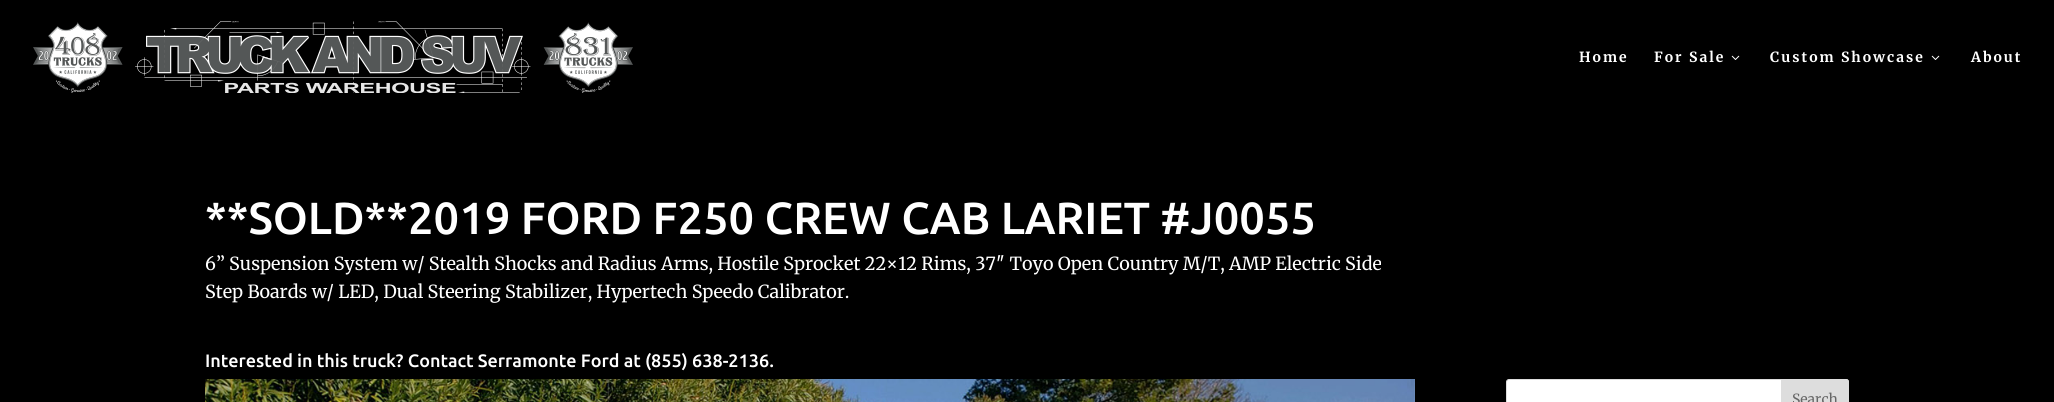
#include <cairo.h>
#include <math.h>
#include <stddef.h>


static void rgb(cairo_t *cr, int r, int g, int b)
{
	cairo_set_source_rgb(cr, r / 255.0, g / 255.0, b / 255.0);
}

static void face(cairo_t *cr, const char *family, double size, int italic, int bold)
{
	cairo_select_font_face(cr, family, italic ? CAIRO_FONT_SLANT_ITALIC : CAIRO_FONT_SLANT_NORMAL,
		bold ? CAIRO_FONT_WEIGHT_BOLD : CAIRO_FONT_WEIGHT_NORMAL);
	cairo_set_font_size(cr, size);
}

static void label(cairo_t *cr, double x, double y, const char *s)
{
	cairo_move_to(cr, x, y);
	cairo_show_text(cr, s);
}

static void tracked(cairo_t *cr, double x, double y, const char *s, double letter, double word)
{
	cairo_move_to(cr, x, y);
	while (*s) {
		char ch[5] = {0};
		int n = 0;
		do ch[n++] = *s++; while ((*s & 0xC0) == 0x80);
		cairo_show_text(cr, ch);
		cairo_rel_move_to(cr, letter + word * (*ch == ' '), 0);
	}
}

static void rrect(cairo_t *cr, double x, double y, double w, double h, double r)
{
	cairo_new_sub_path(cr);
	cairo_arc(cr, x + w - r, y + h - r, r, 0, M_PI / 2);
	cairo_arc(cr, x + r, y + h - r, r, M_PI / 2, M_PI);
	cairo_arc(cr, x + r, y + r, r, M_PI, 1.5 * M_PI);
	cairo_arc(cr, x + w - r, y + r, r, 1.5 * M_PI, 2 * M_PI);
	cairo_close_path(cr);
}

static void image(cairo_t *cr, const char *path, double x, double y, double w, double h)
{
	cairo_surface_t *image = cairo_image_surface_create_from_png(path);
	cairo_save(cr);
	cairo_set_source_surface(cr, image, x, y);
	cairo_rectangle(cr, x, y, w, h);
	cairo_fill(cr);
	cairo_restore(cr);
	cairo_surface_destroy(image);
}

static void draw(cairo_t *cr) {
	rgb(cr, 0, 0, 0);
	cairo_paint(cr);
	image(cr, "image0.png", 33, 21, 600, 72);
	face(cr, "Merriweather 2 Light", 14, 0, 0);
	rgb(cr, 255, 255, 255);
	tracked(cr, 1579, 62, "Home", 2, 0);
	tracked(cr, 1654, 62, "For Sale", 2, 0);
	image(cr, "image1.png", 1731, 55, 9, 5);
	tracked(cr, 1770, 62, "Custom Showcase", 2, 0);
	image(cr, "image1.png", 1931, 55, 9, 5);
	tracked(cr, 1971, 62, "About", 2, 0);
	face(cr, "Ubuntu Medium", 45, 0, 0);
	label(cr, 205, 234, "**SOLD**2019 FORD F250 CREW CAB LARIET #J0055");
	face(cr, "Merriweather Light", 18, 0, 0);
	label(cr, 205, 270, "6” Suspension System w/ Stealth Shocks and Radius Arms, Hostile Sprocket 22×12 Rims, 37″ Toyo Open Country M/T, AMP Electric Side");
	label(cr, 205, 298, "Step Boards w/ LED, Dual Steering Stabilizer, Hypertech Speedo Calibrator.");
	face(cr, "Ubuntu Medium", 18, 0, 0);
	label(cr, 205, 367, "Interested in this truck? Contact Serramonte Ford at (855) 638-2136.");
	image(cr, "image2.png", 205, 379, 1210, 23);
	rrect(cr, 1506.5, 379.5, 342, 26, 2.5);
	cairo_fill_preserve(cr);
	rgb(cr, 221, 221, 221);
	cairo_set_line_width(cr, 1);
	cairo_stroke(cr);
	cairo_new_path(cr);
	cairo_move_to(cr, 1781.5, 379.5);
	cairo_line_to(cr, 1846, 379.5);
	cairo_curve_to(cr, 1847.5, 379.5, 1848.5, 380.5, 1848.5, 382);
	cairo_line_to(cr, 1848.5, 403);
	cairo_curve_to(cr, 1848.5, 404.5, 1847.5, 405.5, 1846, 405.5);
	cairo_line_to(cr, 1781.5, 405.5);
	cairo_close_path(cr);
	cairo_fill_preserve(cr);
	cairo_stroke(cr);
	face(cr, "Merriweather Light", 14, 0, 0);
	rgb(cr, 102, 102, 102);
	label(cr, 1792, 404, "Search");
}

int main(void) {
	cairo_surface_t *surface = cairo_image_surface_create(CAIRO_FORMAT_RGB24, 2054, 402);
	cairo_t *cr = cairo_create(surface);
	cairo_font_options_t *options = cairo_font_options_create();
	cairo_font_options_set_hint_metrics(options, CAIRO_HINT_METRICS_OFF);
	cairo_font_options_set_hint_style(options, CAIRO_HINT_STYLE_NONE);
	cairo_set_font_options(cr, options);
	cairo_set_miter_limit(cr, 4);
	draw(cr);
	cairo_surface_write_to_png(surface, "render.png");
	cairo_font_options_destroy(options);
	cairo_destroy(cr);
	cairo_surface_destroy(surface);
	return 0;
}
